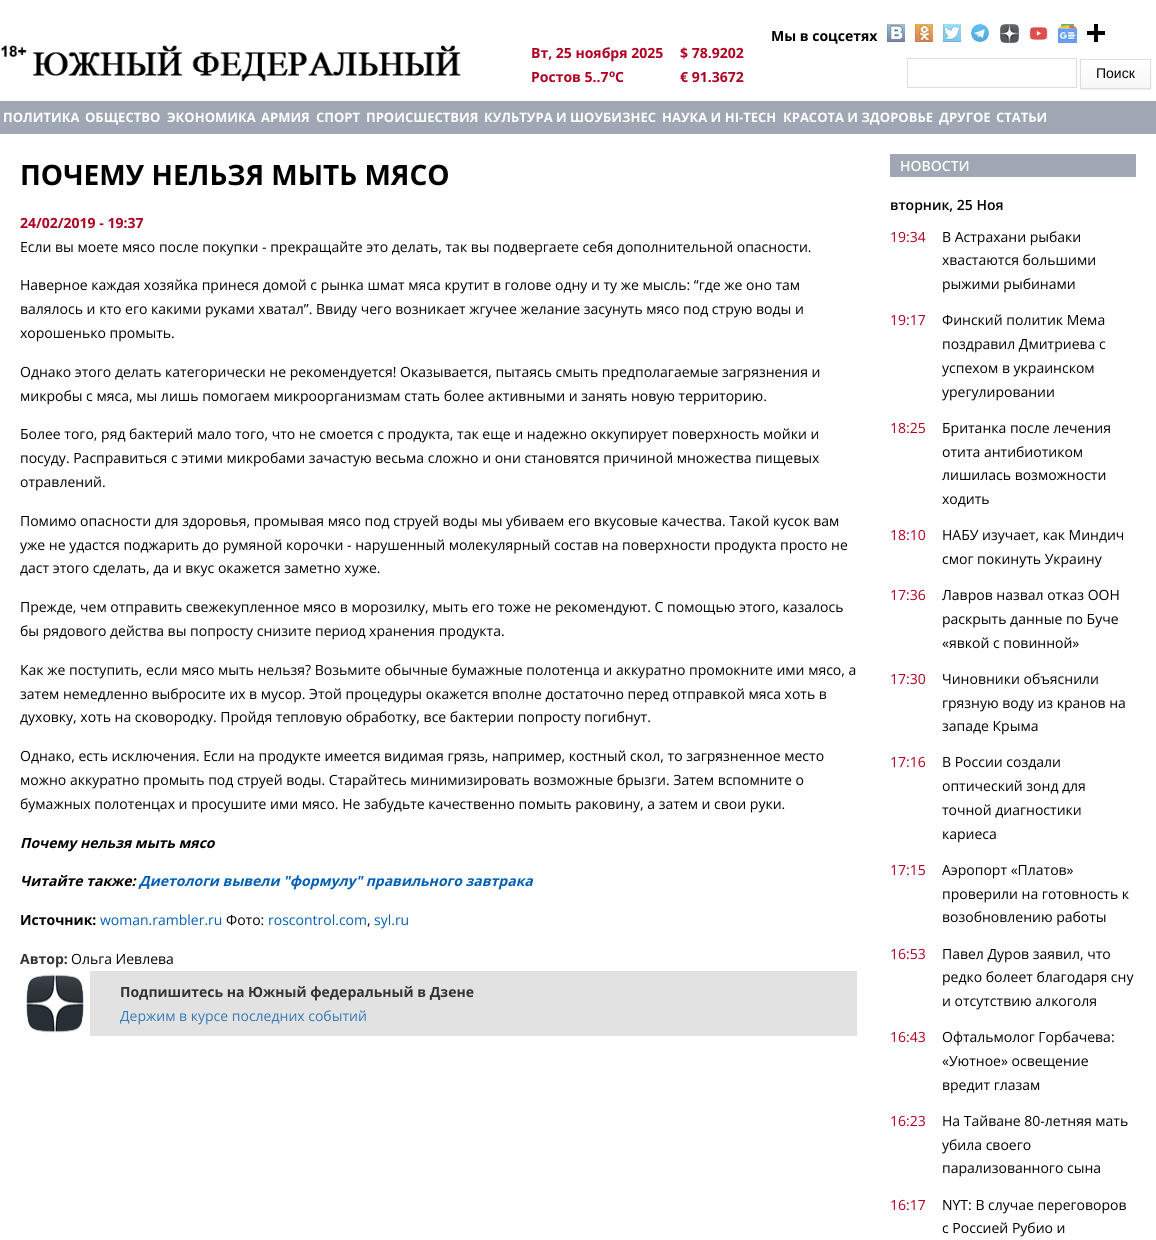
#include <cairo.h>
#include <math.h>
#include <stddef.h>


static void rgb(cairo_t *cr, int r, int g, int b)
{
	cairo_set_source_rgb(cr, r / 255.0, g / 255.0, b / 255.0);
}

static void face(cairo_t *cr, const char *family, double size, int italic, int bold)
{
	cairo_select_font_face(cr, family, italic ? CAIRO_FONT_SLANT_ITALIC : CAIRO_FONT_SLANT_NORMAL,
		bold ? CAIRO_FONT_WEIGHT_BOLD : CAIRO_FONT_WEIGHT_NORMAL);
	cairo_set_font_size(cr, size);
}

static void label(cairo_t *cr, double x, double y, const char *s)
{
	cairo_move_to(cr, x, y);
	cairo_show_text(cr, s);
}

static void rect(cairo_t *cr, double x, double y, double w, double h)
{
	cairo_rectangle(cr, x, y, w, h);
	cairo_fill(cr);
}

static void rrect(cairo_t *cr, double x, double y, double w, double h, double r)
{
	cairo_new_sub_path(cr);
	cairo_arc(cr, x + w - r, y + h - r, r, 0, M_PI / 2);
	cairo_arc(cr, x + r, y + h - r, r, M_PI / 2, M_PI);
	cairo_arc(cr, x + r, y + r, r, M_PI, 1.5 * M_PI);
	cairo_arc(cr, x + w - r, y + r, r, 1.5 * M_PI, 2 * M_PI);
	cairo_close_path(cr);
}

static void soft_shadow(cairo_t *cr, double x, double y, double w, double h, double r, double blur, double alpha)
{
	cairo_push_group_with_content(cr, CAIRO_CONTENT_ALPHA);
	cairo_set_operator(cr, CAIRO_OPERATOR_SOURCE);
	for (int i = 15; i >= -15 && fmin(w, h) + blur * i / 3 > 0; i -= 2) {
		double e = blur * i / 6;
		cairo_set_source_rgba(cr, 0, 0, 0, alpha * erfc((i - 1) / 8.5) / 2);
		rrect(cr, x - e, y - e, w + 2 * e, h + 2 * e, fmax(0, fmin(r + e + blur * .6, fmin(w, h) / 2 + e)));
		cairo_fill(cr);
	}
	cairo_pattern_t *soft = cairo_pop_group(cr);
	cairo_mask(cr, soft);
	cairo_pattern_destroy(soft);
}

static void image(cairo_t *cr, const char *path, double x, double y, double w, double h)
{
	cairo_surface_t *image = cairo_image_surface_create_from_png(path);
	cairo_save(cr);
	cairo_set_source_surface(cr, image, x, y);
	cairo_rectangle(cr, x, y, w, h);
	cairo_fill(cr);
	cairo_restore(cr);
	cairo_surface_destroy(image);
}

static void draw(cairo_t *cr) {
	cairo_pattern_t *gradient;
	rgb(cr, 255, 255, 255);
	cairo_paint(cr);
	image(cr, "image0.png", 1, 45, 460, 36);
	face(cr, "Open Sans", 14, 0, 1);
	rgb(cr, 0, 0, 0);
	label(cr, 771, 41, "Мы в соцсетях");
	image(cr, "image1.png", 887, 24, 18, 18);
	image(cr, "image2.png", 915, 24, 18, 18);
	image(cr, "image3.png", 943, 24, 18, 18);
	image(cr, "image4.png", 971, 24, 18, 18);
	image(cr, "image5.png", 1000, 24, 19, 19);
	image(cr, "image6.png", 1029, 27, 19, 13);
	image(cr, "image7.png", 1058, 24, 19, 19);
	image(cr, "image8.png", 1087, 24, 18, 18);
	rgb(cr, 176, 0, 33);
	label(cr, 531, 58, "Вт, 25 ноября 2025");
	label(cr, 680, 58, "$ 78.9202");
	label(cr, 531, 82, "Ростов 5..7");
	face(cr, "Open Sans", 10, 0, 1);
	label(cr, 609, 77, "o");
	face(cr, "Open Sans", 14, 0, 1);
	label(cr, 615, 82, "C");
	label(cr, 680, 82, "€ 91.3672");
	cairo_rectangle(cr, 907.5, 58.5, 169, 29);
	rgb(cr, 221, 221, 221);
	cairo_set_line_width(cr, 1);
	cairo_stroke(cr);
	rgb(cr, 180, 180, 180);
	soft_shadow(cr, 1080, 60, 71, 30, 0, 0.5, 0.2);
	gradient = cairo_pattern_create_linear(1116, 88, 1116, 60);
	cairo_pattern_add_color_stop_rgba(gradient, 0, 0.969, 0.969, 0.969, 1);
	cairo_pattern_add_color_stop_rgba(gradient, 1, 1, 1, 1, 1);
	cairo_set_source(cr, gradient);
	cairo_pattern_destroy(gradient);
	rect(cr, 1081, 60, 69, 28);
	cairo_rectangle(cr, 1080.5, 59.5, 70, 29);
	rgb(cr, 221, 221, 221);
	cairo_stroke(cr);
	face(cr, "Liberation Sans", 14, 0, 0);
	rgb(cr, 0, 0, 0);
	label(cr, 1096, 78, "Поиск");
	rgb(cr, 158, 167, 179);
	rect(cr, 0, 101, 1156, 33);
	face(cr, "Open Sans", 13, 0, 1);
	rgb(cr, 255, 255, 255);
	label(cr, 3, 122, "ПОЛИТИКА");
	label(cr, 85, 122, "ОБЩЕСТВО");
	label(cr, 167, 122, "ЭКОНОМИКА");
	label(cr, 261, 122, "АРМИЯ");
	label(cr, 316, 122, "СПОРТ");
	label(cr, 366, 122, "ПРОИСШЕСТВИЯ");
	label(cr, 484, 122, "КУЛЬТУРА И ШОУБИЗНЕС");
	label(cr, 662, 122, "НАУКА И HI-TECH");
	label(cr, 783, 122, "КРАСОТА И ЗДОРОВЬЕ");
	label(cr, 939, 122, "ДРУГОЕ");
	label(cr, 996, 122, "СТАТЬИ");
	face(cr, "Open Sans", 28, 0, 1);
	rgb(cr, 0, 0, 0);
	label(cr, 20, 185, "ПОЧЕМУ НЕЛЬЗЯ МЫТЬ МЯСО");
	face(cr, "Open Sans", 14, 0, 1);
	rgb(cr, 176, 0, 33);
	label(cr, 20, 228, "24/02/2019 - 19:37");
	face(cr, "Open Sans", 14, 0, 0);
	rgb(cr, 0, 0, 0);
	label(cr, 20, 252, "Если вы моете мясо после покупки - прекращайте это делать, так вы подвергаете себя дополнительной опасности.");
	label(cr, 20, 290, "Наверное каждая хозяйка принеся домой с рынка шмат мяса крутит в голове одну и ту же мысль: “где же оно там");
	label(cr, 20, 314, "валялось и кто его какими руками хватал”. Ввиду чего возникает жгучее желание засунуть мясо под струю воды и");
	label(cr, 20, 338, "хорошенько промыть.");
	label(cr, 20, 377, "Однако этого делать категорически не рекомендуется! Оказывается, пытаясь смыть предполагаемые загрязнения и");
	label(cr, 20, 401, "микробы с мяса, мы лишь помогаем микроорганизмам стать более активными и занять новую территорию.");
	label(cr, 20, 439, "Более того, ряд бактерий мало того, что не смоется с продукта, так еще и надежно оккупирует поверхность мойки и");
	label(cr, 20, 463, "посуду. Расправиться с этими микробами зачастую весьма сложно и они становятся причиной множества пищевых");
	label(cr, 20, 487, "отравлений.");
	label(cr, 20, 526, "Помимо опасности для здоровья, промывая мясо под струей воды мы убиваем его вкусовые качества. Такой кусок вам");
	label(cr, 20, 550, "уже не удастся поджарить до румяной корочки - нарушенный молекулярный состав на поверхности продукта просто не");
	label(cr, 20, 573, "даст этого сделать, да и вкус окажется заметно хуже.");
	label(cr, 20, 612, "Прежде, чем отправить свежекупленное мясо в морозилку, мыть его тоже не рекомендуют. С помощью этого, казалось");
	label(cr, 20, 636, "бы рядового действа вы попросту снизите период хранения продукта.");
	label(cr, 20, 675, "Как же поступить, если мясо мыть нельзя? Возьмите обычные бумажные полотенца и аккуратно промокните ими мясо, а");
	label(cr, 20, 699, "затем немедленно выбросите их в мусор. Этой процедуры окажется вполне достаточно перед отправкой мяса хоть в");
	label(cr, 20, 722, "духовку, хоть на сковородку. Пройдя тепловую обработку, все бактерии попросту погибнут.");
	label(cr, 20, 761, "Однако, есть исключения. Если на продукте имеется видимая грязь, например, костный скол, то загрязненное место");
	label(cr, 20, 785, "можно аккуратно промыть под струей воды. Старайтесь минимизировать возможные брызги. Затем вспомните о");
	label(cr, 20, 809, "бумажных полотенцах и просушите ими мясо. Не забудьте качественно помыть раковину, а затем и свои руки.");
	face(cr, "Open Sans", 14, 1, 1);
	label(cr, 20, 848, "Почему нельзя мыть мясо");
	label(cr, 20, 886, "Читайте также:");
	rgb(cr, 1, 95, 182);
	label(cr, 139, 886, "Диетологи вывели \"формулу\" правильного завтрака");
	face(cr, "Open Sans", 14, 0, 1);
	rgb(cr, 0, 0, 0);
	label(cr, 20, 925, "Источник:");
	face(cr, "Open Sans", 14, 0, 0);
	rgb(cr, 1, 95, 182);
	label(cr, 100, 925, "woman.rambler.ru");
	rgb(cr, 0, 0, 0);
	label(cr, 226, 925, "Фото:");
	rgb(cr, 1, 95, 182);
	label(cr, 268, 925, "roscontrol.com");
	rgb(cr, 0, 0, 0);
	label(cr, 367, 925, ",");
	rgb(cr, 1, 95, 182);
	label(cr, 374, 925, "syl.ru");
	face(cr, "Open Sans", 14, 0, 1);
	rgb(cr, 51, 51, 51);
	label(cr, 20, 964, "Автор:");
	face(cr, "Open Sans", 14, 0, 0);
	rgb(cr, 0, 0, 0);
	label(cr, 71, 964, "Ольга Иевлева");
	rgb(cr, 226, 226, 226);
	rect(cr, 26, 971, 831, 65);
	image(cr, "image9.png", 20, 971, 70, 65);
	face(cr, "Open Sans", 14, 0, 1);
	rgb(cr, 51, 51, 51);
	label(cr, 120, 997, "Подпишитесь на Южный федеральный в Дзене");
	face(cr, "Open Sans", 14, 0, 0);
	rgb(cr, 51, 122, 183);
	label(cr, 120, 1021, "Держим в курсе последних событий");
	rgb(cr, 158, 167, 179);
	rect(cr, 890, 154, 246, 23);
	face(cr, "Open Sans SemiBold", 14, 0, 0);
	rgb(cr, 255, 255, 255);
	label(cr, 900, 171, "НОВОСТИ");
	rgb(cr, 0, 0, 0);
	label(cr, 890, 210, "вторник, 25 Ноя");
	face(cr, "Open Sans", 14, 0, 0);
	rgb(cr, 176, 0, 33);
	label(cr, 890, 242, "19:34");
	rgb(cr, 0, 0, 0);
	label(cr, 942, 242, "В Астрахани рыбаки");
	label(cr, 942, 265, "хвастаются большими");
	label(cr, 942, 289, "рыжими рыбинами");
	rgb(cr, 176, 0, 33);
	label(cr, 890, 325, "19:17");
	rgb(cr, 0, 0, 0);
	label(cr, 942, 325, "Финский политик Мема");
	label(cr, 942, 349, "поздравил Дмитриева с");
	label(cr, 942, 373, "успехом в украинском");
	label(cr, 942, 397, "урегулировании");
	rgb(cr, 176, 0, 33);
	label(cr, 890, 433, "18:25");
	rgb(cr, 0, 0, 0);
	label(cr, 942, 433, "Британка после лечения");
	label(cr, 942, 457, "отита антибиотиком");
	label(cr, 942, 480, "лишилась возможности");
	label(cr, 942, 504, "ходить");
	rgb(cr, 176, 0, 33);
	label(cr, 890, 540, "18:10");
	rgb(cr, 0, 0, 0);
	label(cr, 942, 540, "НАБУ изучает, как Миндич");
	label(cr, 942, 564, "смог покинуть Украину");
	rgb(cr, 176, 0, 33);
	label(cr, 890, 600, "17:36");
	rgb(cr, 0, 0, 0);
	label(cr, 942, 600, "Лавров назвал отказ ООН");
	label(cr, 942, 624, "раскрыть данные по Буче");
	label(cr, 942, 648, "«явкой с повинной»");
	rgb(cr, 176, 0, 33);
	label(cr, 890, 684, "17:30");
	rgb(cr, 0, 0, 0);
	label(cr, 942, 684, "Чиновники объяснили");
	label(cr, 942, 708, "грязную воду из кранов на");
	label(cr, 942, 731, "западе Крыма");
	rgb(cr, 176, 0, 33);
	label(cr, 890, 767, "17:16");
	rgb(cr, 0, 0, 0);
	label(cr, 942, 767, "В России создали");
	label(cr, 942, 791, "оптический зонд для");
	label(cr, 942, 815, "точной диагностики");
	label(cr, 942, 839, "кариеса");
	rgb(cr, 176, 0, 33);
	label(cr, 890, 875, "17:15");
	rgb(cr, 0, 0, 0);
	label(cr, 942, 875, "Аэропорт «Платов»");
	label(cr, 942, 899, "проверили на готовность к");
	label(cr, 942, 922, "возобновлению работы");
	rgb(cr, 176, 0, 33);
	label(cr, 890, 959, "16:53");
	rgb(cr, 0, 0, 0);
	label(cr, 942, 959, "Павел Дуров заявил, что");
	label(cr, 942, 982, "редко болеет благодаря сну");
	label(cr, 942, 1006, "и отсутствию алкоголя");
	rgb(cr, 176, 0, 33);
	label(cr, 890, 1042, "16:43");
	rgb(cr, 0, 0, 0);
	label(cr, 942, 1042, "Офтальмолог Горбачева:");
	label(cr, 942, 1066, "«Уютное» освещение");
	label(cr, 942, 1090, "вредит глазам");
	rgb(cr, 176, 0, 33);
	label(cr, 890, 1126, "16:23");
	rgb(cr, 0, 0, 0);
	label(cr, 942, 1126, "На Тайване 80-летняя мать");
	label(cr, 942, 1150, "убила своего");
	label(cr, 942, 1173, "парализованного сына");
	rgb(cr, 176, 0, 33);
	label(cr, 890, 1210, "16:17");
	rgb(cr, 0, 0, 0);
	label(cr, 942, 1210, "NYT: В случае переговоров");
	label(cr, 942, 1233, "с Россией Рубио и");
}

int main(void) {
	cairo_surface_t *surface = cairo_image_surface_create(CAIRO_FORMAT_RGB24, 1156, 1240);
	cairo_t *cr = cairo_create(surface);
	cairo_font_options_t *options = cairo_font_options_create();
	cairo_font_options_set_hint_metrics(options, CAIRO_HINT_METRICS_OFF);
	cairo_font_options_set_hint_style(options, CAIRO_HINT_STYLE_NONE);
	cairo_set_font_options(cr, options);
	cairo_set_miter_limit(cr, 4);
	draw(cr);
	cairo_surface_write_to_png(surface, "render.png");
	cairo_font_options_destroy(options);
	cairo_destroy(cr);
	cairo_surface_destroy(surface);
	return 0;
}
